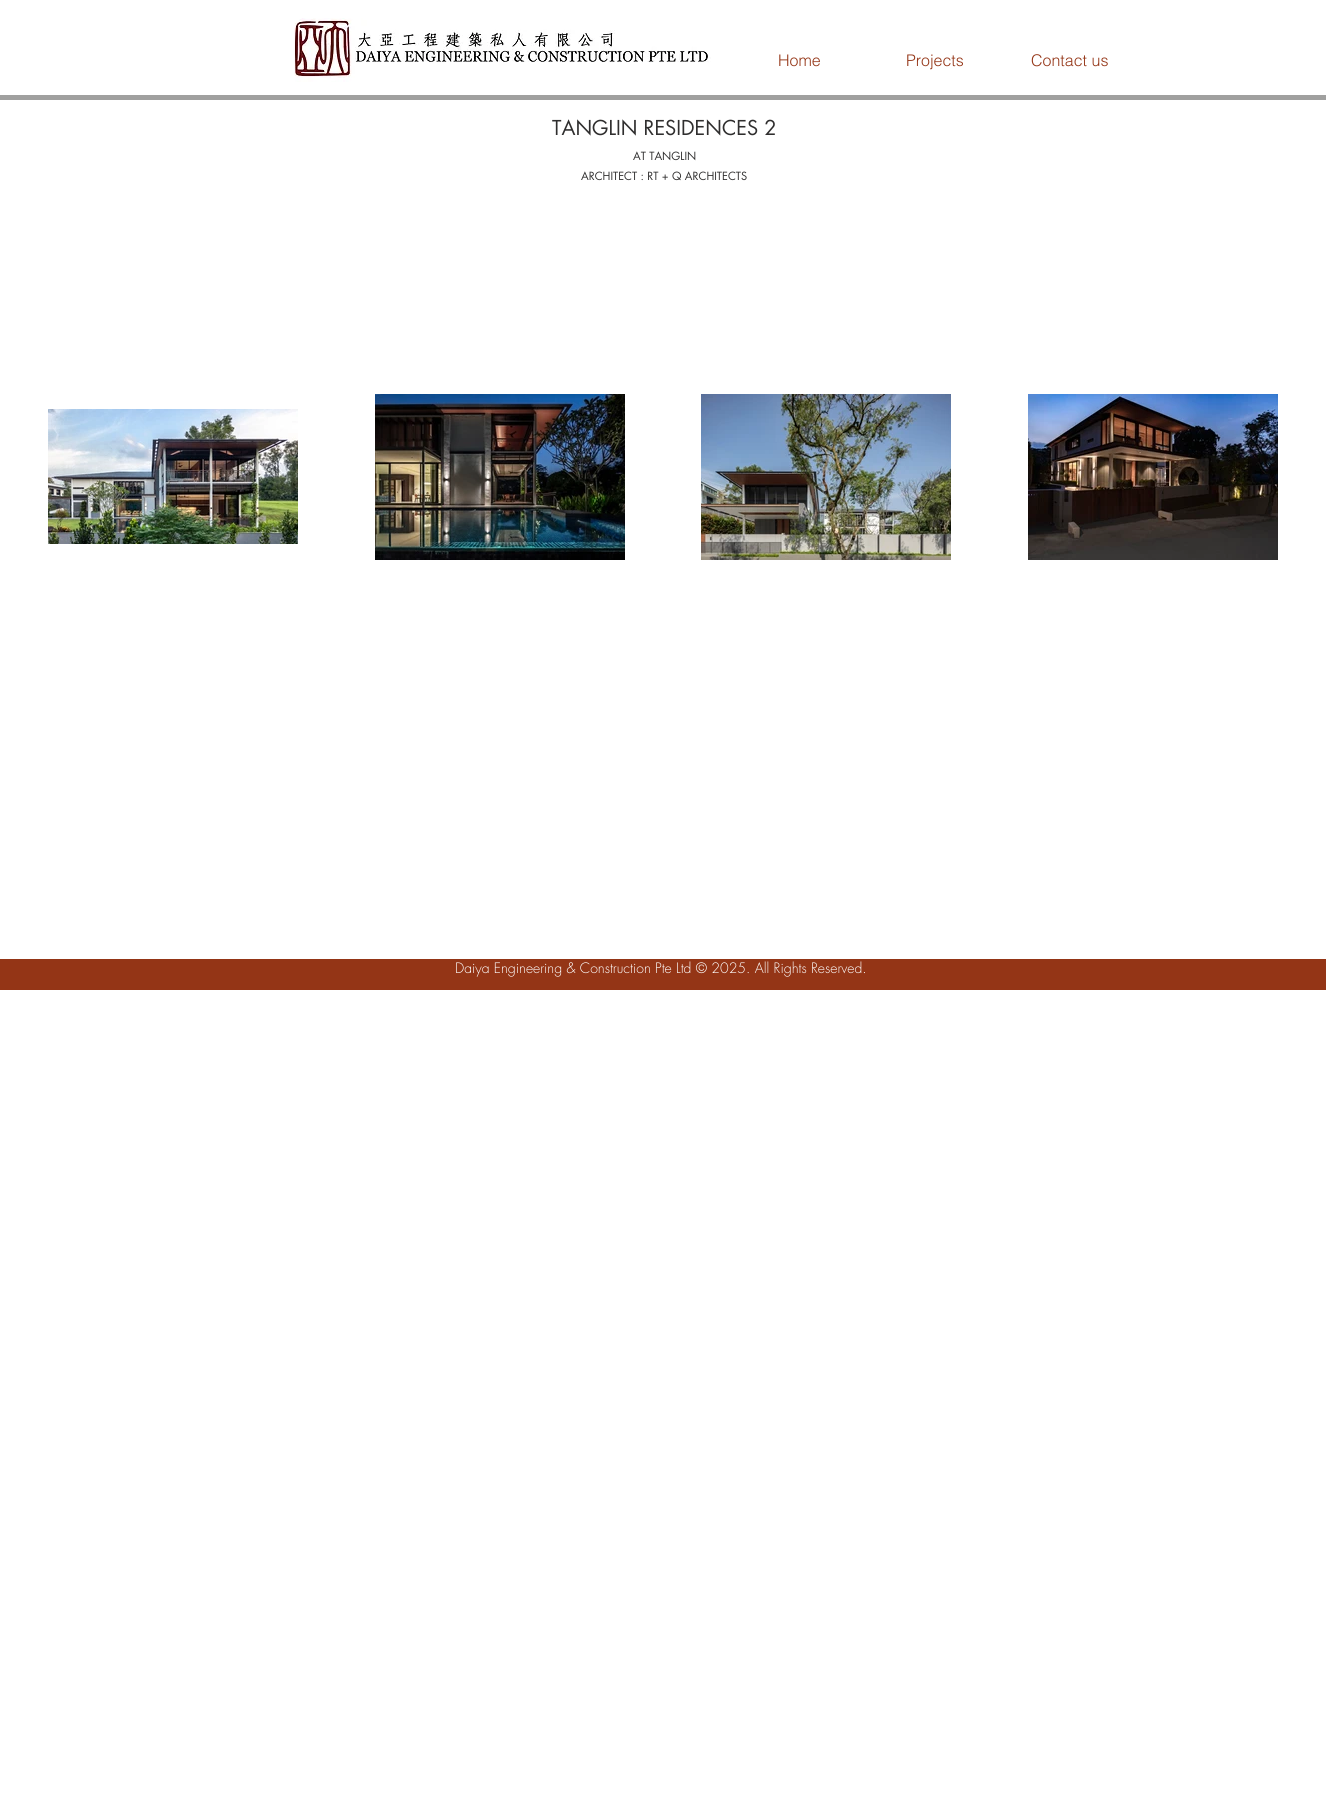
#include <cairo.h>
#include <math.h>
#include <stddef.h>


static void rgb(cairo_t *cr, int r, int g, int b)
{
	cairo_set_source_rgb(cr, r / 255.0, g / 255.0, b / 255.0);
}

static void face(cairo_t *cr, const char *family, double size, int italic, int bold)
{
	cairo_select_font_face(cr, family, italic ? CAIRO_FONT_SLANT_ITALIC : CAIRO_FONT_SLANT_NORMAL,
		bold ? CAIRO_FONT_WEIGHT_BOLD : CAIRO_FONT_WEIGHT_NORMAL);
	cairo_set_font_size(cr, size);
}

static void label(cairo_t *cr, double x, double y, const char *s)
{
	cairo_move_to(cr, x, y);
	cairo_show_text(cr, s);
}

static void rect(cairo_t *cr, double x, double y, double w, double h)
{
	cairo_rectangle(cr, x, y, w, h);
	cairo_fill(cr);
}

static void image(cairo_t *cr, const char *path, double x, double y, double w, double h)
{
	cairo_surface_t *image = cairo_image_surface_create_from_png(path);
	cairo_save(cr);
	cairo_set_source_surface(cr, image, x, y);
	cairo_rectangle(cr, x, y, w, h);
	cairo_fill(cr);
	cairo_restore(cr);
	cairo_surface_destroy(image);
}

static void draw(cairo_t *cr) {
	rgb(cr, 255, 255, 255);
	cairo_paint(cr);
	image(cr, "image0.png", 294, 18, 417, 64);
	face(cr, "helvetica Light", 16, 0, 0);
	rgb(cr, 148, 53, 22);
	label(cr, 778, 66, "Home");
	label(cr, 906, 66, "Projects");
	label(cr, 1031, 66, "Contact us");
	rgb(cr, 160, 160, 159);
	rect(cr, 0, 95, 1326, 5);
	face(cr, "futura", 20, 0, 0);
	rgb(cr, 47, 46, 46);
	label(cr, 552, 135, "TANGLIN RESIDENCES 2");
	face(cr, "futura", 11, 0, 0);
	label(cr, 633, 160, "AT TANGLIN");
	label(cr, 581, 180, "ARCHITECT : RT + Q ARCHITECTS");
	image(cr, "image1.png", 48, 409, 250, 135);
	image(cr, "image2.png", 375, 394, 250, 166);
	image(cr, "image3.png", 701, 394, 250, 166);
	image(cr, "image4.png", 1028, 394, 250, 166);
	rgb(cr, 148, 53, 22);
	rect(cr, 0, 959, 1326, 31);
	face(cr, "futura Light", 14, 0, 0);
	rgb(cr, 255, 255, 255);
	label(cr, 455, 973, "Daiya Engineering & Construction Pte Ltd © 2025. All Rights Reserved.");
}

int main(void) {
	cairo_surface_t *surface = cairo_image_surface_create(CAIRO_FORMAT_RGB24, 1326, 1800);
	cairo_t *cr = cairo_create(surface);
	cairo_font_options_t *options = cairo_font_options_create();
	cairo_font_options_set_hint_metrics(options, CAIRO_HINT_METRICS_OFF);
	cairo_font_options_set_hint_style(options, CAIRO_HINT_STYLE_NONE);
	cairo_set_font_options(cr, options);
	cairo_set_miter_limit(cr, 4);
	draw(cr);
	cairo_surface_write_to_png(surface, "render.png");
	cairo_font_options_destroy(options);
	cairo_destroy(cr);
	cairo_surface_destroy(surface);
	return 0;
}
